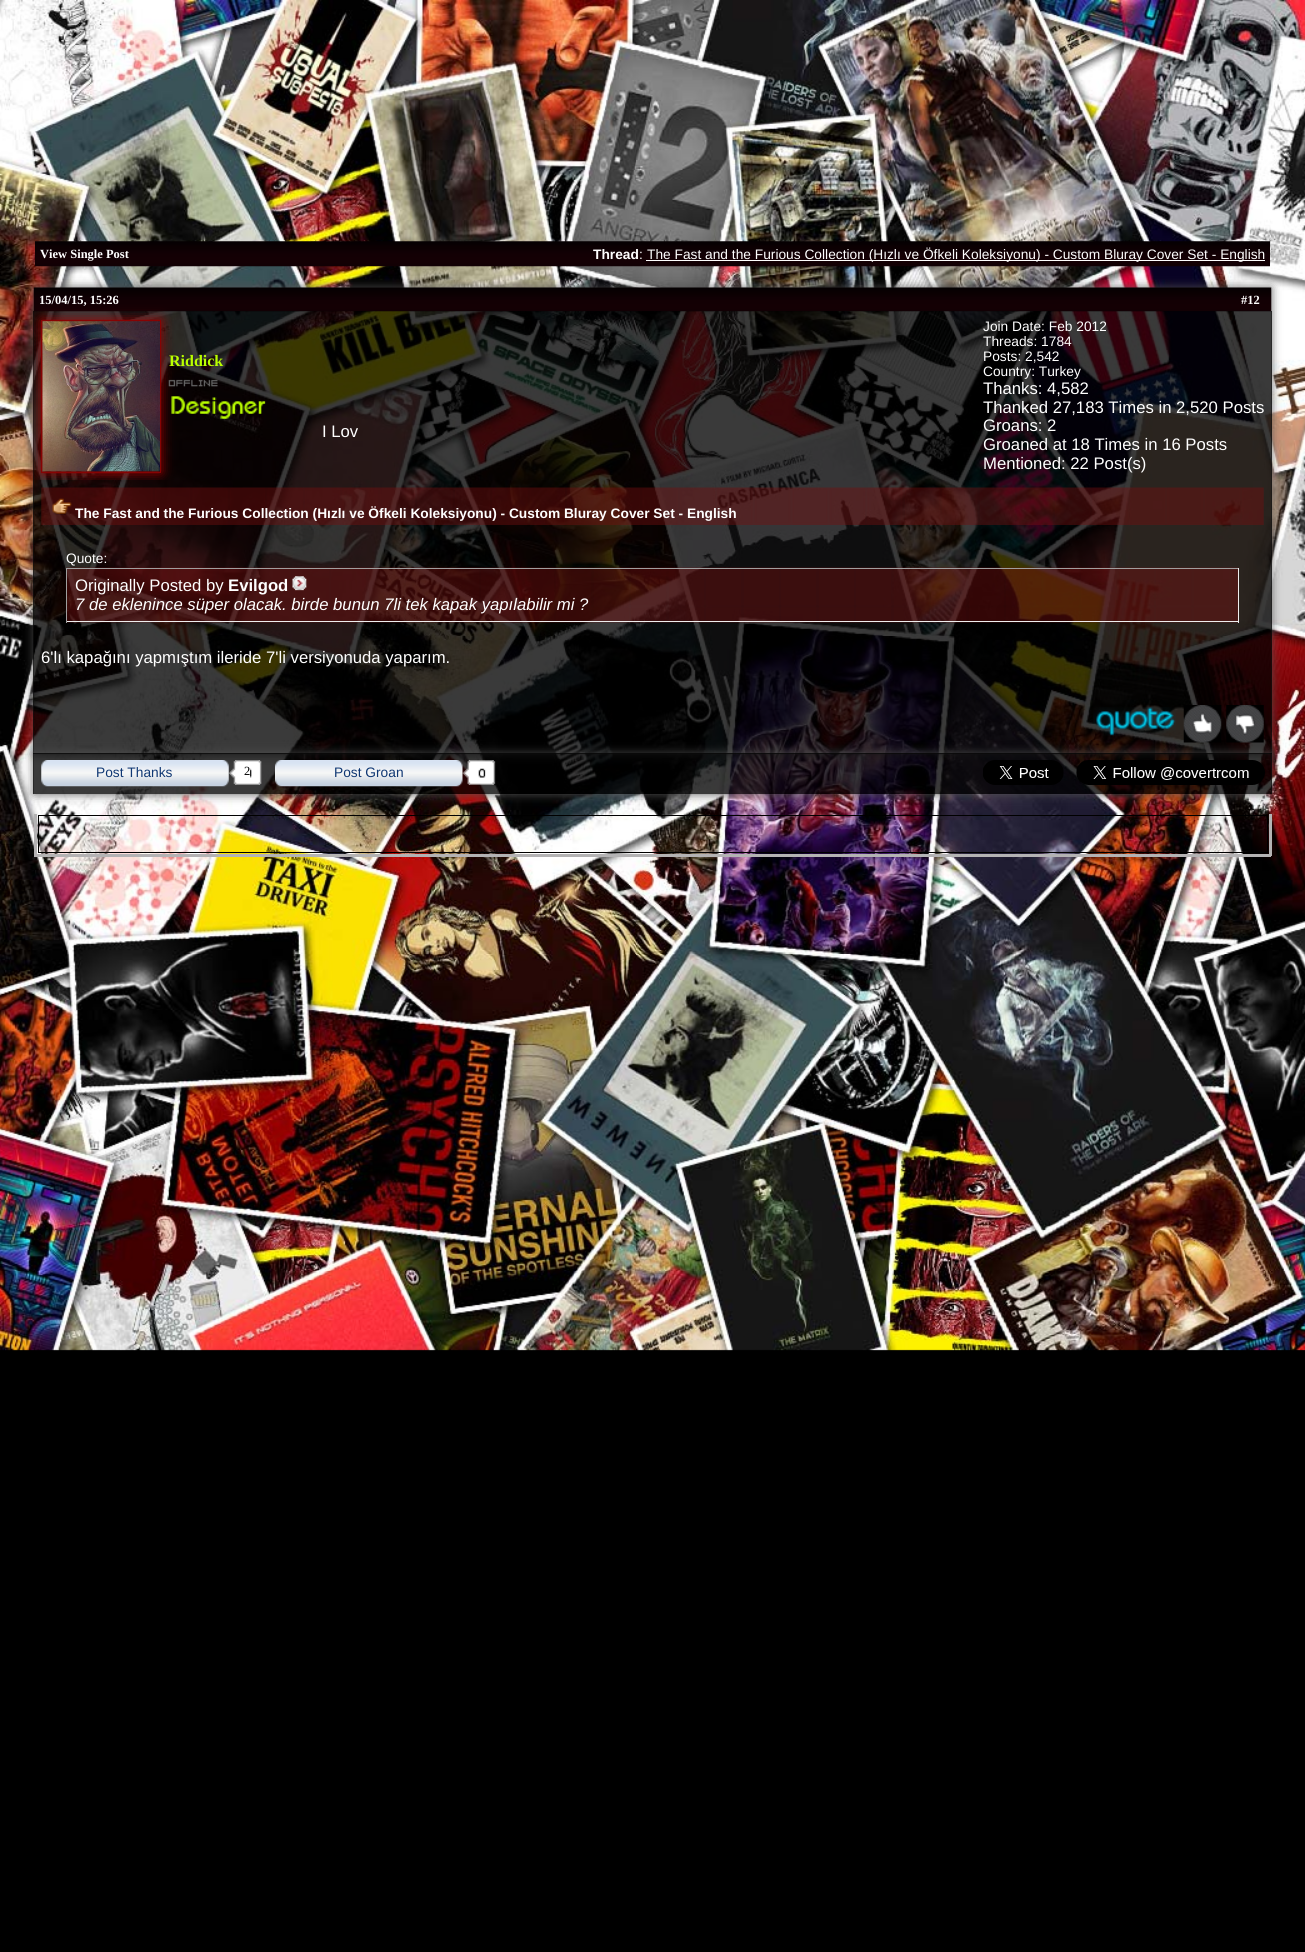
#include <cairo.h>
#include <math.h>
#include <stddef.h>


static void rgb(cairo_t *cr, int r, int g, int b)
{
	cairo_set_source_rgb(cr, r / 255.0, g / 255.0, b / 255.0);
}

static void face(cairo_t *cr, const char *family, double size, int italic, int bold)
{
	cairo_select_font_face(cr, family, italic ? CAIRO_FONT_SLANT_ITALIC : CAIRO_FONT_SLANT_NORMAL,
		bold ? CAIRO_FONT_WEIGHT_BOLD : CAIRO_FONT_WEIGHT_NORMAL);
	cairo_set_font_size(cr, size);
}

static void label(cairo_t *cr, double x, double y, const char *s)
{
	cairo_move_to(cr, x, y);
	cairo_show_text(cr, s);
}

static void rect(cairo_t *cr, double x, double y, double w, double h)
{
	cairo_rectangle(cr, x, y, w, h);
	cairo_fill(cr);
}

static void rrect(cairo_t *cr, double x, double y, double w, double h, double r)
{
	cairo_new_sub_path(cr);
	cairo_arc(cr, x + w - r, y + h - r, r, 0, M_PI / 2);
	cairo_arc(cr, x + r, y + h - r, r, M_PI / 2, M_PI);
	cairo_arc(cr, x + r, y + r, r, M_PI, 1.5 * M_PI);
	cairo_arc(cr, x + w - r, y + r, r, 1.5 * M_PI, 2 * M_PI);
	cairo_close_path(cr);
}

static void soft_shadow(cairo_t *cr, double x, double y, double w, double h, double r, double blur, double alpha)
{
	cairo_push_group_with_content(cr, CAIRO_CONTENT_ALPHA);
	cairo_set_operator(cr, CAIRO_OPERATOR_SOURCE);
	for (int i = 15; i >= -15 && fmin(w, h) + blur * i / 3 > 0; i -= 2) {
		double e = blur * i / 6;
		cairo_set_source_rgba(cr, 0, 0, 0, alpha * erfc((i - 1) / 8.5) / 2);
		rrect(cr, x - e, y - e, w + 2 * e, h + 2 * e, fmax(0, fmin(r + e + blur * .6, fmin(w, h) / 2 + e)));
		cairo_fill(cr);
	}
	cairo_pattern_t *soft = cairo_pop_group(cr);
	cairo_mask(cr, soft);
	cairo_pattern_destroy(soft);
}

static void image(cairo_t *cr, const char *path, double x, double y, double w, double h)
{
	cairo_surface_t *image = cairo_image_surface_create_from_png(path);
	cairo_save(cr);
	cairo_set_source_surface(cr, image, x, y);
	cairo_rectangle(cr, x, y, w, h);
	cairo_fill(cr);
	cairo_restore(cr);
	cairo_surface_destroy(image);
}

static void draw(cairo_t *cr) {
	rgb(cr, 0, 0, 0);
	cairo_paint(cr);
	image(cr, "image0.png", 0, 0, 1305, 1351);
	image(cr, "image1.png", 35, 241, 1235, 26);
	face(cr, "Liberation Serif", 12.5, 0, 1);
	rgb(cr, 255, 255, 255);
	label(cr, 40, 258, "View Single Post");
	face(cr, "Liberation Sans", 13.75, 0, 1);
	label(cr, 593, 259, "Thread");
	face(cr, "Liberation Sans", 13.75, 0, 0);
	label(cr, 639, 259, ":");
	rect(cr, 646, 260, 619, 1);
	label(cr, 647, 259, "The Fast and the Furious Collection (Hızlı ve Öfkeli Koleksiyonu) - Custom Bluray Cover Set - English");
	cairo_save(cr);
	cairo_set_fill_rule(cr, CAIRO_FILL_RULE_EVEN_ODD);
	cairo_new_path(cr);
	cairo_move_to(cr, 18, 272);
	cairo_line_to(cr, 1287, 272);
	cairo_line_to(cr, 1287, 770);
	cairo_line_to(cr, 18, 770);
	cairo_close_path(cr);
	cairo_move_to(cr, 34, 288);
	cairo_line_to(cr, 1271, 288);
	cairo_line_to(cr, 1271, 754);
	cairo_line_to(cr, 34, 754);
	cairo_close_path(cr);
	cairo_clip(cr);
	rgb(cr, 85, 85, 85);
	soft_shadow(cr, 34, 288, 1237, 466, 0, 5, 1);
	cairo_restore(cr);
	image(cr, "image2.png", 33, 287, 1239, 25);
	cairo_set_source_rgba(cr, 0, 0, 0, 0.77);
	rect(cr, 33, 311, 1239, 169);
	rgb(cr, 162, 0, 0);
	soft_shadow(cr, 41, 320, 120, 153, 0, 6, 1);
	face(cr, "Liberation Serif", 12.5, 0, 1);
	rgb(cr, 255, 255, 255);
	label(cr, 39, 304, "15/04/15, 15:26");
	label(cr, 1241, 304, "#12");
	cairo_rectangle(cr, 41.5, 320.5, 119, 152);
	rgb(cr, 135, 3, 3);
	cairo_set_line_width(cr, 1);
	cairo_stroke(cr);
	image(cr, "image3.png", 42, 321, 118, 151);
	face(cr, "Liberation Serif", 16, 0, 1);
	rgb(cr, 186, 255, 0);
	label(cr, 169, 366, "Riddick");
	image(cr, "image4.png", 168, 379, 50, 8);
	image(cr, "image5.png", 171, 396, 95, 23);
	face(cr, "Liberation Sans", 16.7, 0, 0);
	rgb(cr, 255, 255, 255);
	label(cr, 322, 437, "I Lov");
	face(cr, "Liberation Sans", 13.75, 0, 0);
	label(cr, 983, 331, "Join Date: Feb 2012");
	label(cr, 983, 346, "Threads: 1784");
	label(cr, 983, 361, "Posts: 2,542");
	label(cr, 983, 376, "Country: Turkey");
	face(cr, "Liberation Sans", 16.7, 0, 0);
	label(cr, 983, 394, "Thanks: 4,582");
	label(cr, 983, 413, "Thanked 27,183 Times in 2,520 Posts");
	label(cr, 983, 431, "Groans: 2");
	label(cr, 983, 450, "Groaned at 18 Times in 16 Posts");
	label(cr, 983, 469, "Mentioned: 22 Post(s)");
	cairo_set_source_rgba(cr, 0, 0, 0, 0.77);
	rect(cr, 33, 480, 1239, 274);
	image(cr, "image6.png", 41, 487, 1223, 38);
	image(cr, "image7.png", 52, 498, 20, 17);
	face(cr, "Liberation Sans", 13.75, 0, 1);
	rgb(cr, 255, 255, 255);
	label(cr, 75, 518, "The Fast and the Furious Collection (Hızlı ve Öfkeli Koleksiyonu) - Custom Bluray Cover Set - English");
	face(cr, "Liberation Sans", 13.75, 0, 0);
	label(cr, 66, 563, "Quote:");
	image(cr, "image8.png", 66, 567, 1173, 56);
	rgb(cr, 159, 159, 159);
	rect(cr, 66, 568, 1173, 1);
	rgb(cr, 238, 238, 238);
	rect(cr, 1238, 568, 1, 55);
	rect(cr, 66, 621, 1173, 1);
	rgb(cr, 159, 159, 159);
	rect(cr, 66, 568, 1, 55);
	face(cr, "Liberation Sans", 16.7, 0, 0);
	rgb(cr, 255, 255, 255);
	label(cr, 75, 591, "Originally Posted by");
	face(cr, "Liberation Sans", 16.7, 0, 1);
	label(cr, 228, 591, "Evilgod");
	image(cr, "image9.png", 292, 576, 15, 15);
	face(cr, "Liberation Sans", 16.7, 1, 0);
	label(cr, 75, 610, "7 de eklenince süper olacak. birde bunun 7li tek kapak yapılabilir mi ?");
	face(cr, "Liberation Sans", 16.7, 0, 0);
	label(cr, 41, 663, "6'lı kapağını yapmıştım ileride 7'li versiyonuda yaparım.");
	image(cr, "image10.png", 1093, 707, 83, 29);
	cairo_save(cr);
	cairo_set_fill_rule(cr, CAIRO_FILL_RULE_EVEN_ODD);
	cairo_new_path(cr);
	cairo_move_to(cr, 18, 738);
	cairo_line_to(cr, 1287, 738);
	cairo_line_to(cr, 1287, 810);
	cairo_line_to(cr, 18, 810);
	cairo_close_path(cr);
	cairo_move_to(cr, 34, 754);
	cairo_line_to(cr, 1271, 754);
	cairo_line_to(cr, 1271, 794);
	cairo_line_to(cr, 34, 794);
	cairo_close_path(cr);
	cairo_clip(cr);
	rgb(cr, 85, 85, 85);
	soft_shadow(cr, 34, 754, 1237, 40, 0, 5, 1);
	cairo_restore(cr);
	image(cr, "image11.png", 1183, 705, 39, 38);
	image(cr, "image12.png", 1226, 705, 38, 38);
	cairo_set_source_rgba(cr, 0, 0, 0, 0.77);
	rect(cr, 33, 753, 1239, 41);
	image(cr, "image13.png", 41, 760, 188, 27);
	face(cr, "Liberation Sans", 13.75, 0, 0);
	rgb(cr, 16, 56, 116);
	label(cr, 96, 777, "Post Thanks");
	image(cr, "image14.png", 229, 760, 33, 25);
	rgb(cr, 255, 255, 255);
	rect(cr, 244, 764, 6, 14);
	face(cr, "Liberation Serif", 12.5, 0, 0);
	rgb(cr, 0, 0, 0);
	label(cr, 244, 775, "2");
	image(cr, "image15.png", 275, 760, 188, 27);
	face(cr, "Liberation Sans", 13.75, 0, 0);
	rgb(cr, 16, 56, 116);
	label(cr, 334, 777, "Post Groan");
	image(cr, "image16.png", 462, 760, 34, 25);
	image(cr, "image17.png", 983, 760, 81, 25);
	image(cr, "image18.png", 1076, 760, 189, 25);
	rgb(cr, 180, 179, 180);
	rect(cr, 1269, 814, 3, 42);
	rect(cr, 34, 854, 1237, 3);
	rect(cr, 34, 814, 3, 42);
	cairo_rectangle(cr, 38.5, 815.5, 1229, 37);
	rgb(cr, 0, 0, 0);
	cairo_stroke(cr);
}

int main(void) {
	cairo_surface_t *surface = cairo_image_surface_create(CAIRO_FORMAT_RGB24, 1305, 1952);
	cairo_t *cr = cairo_create(surface);
	cairo_font_options_t *options = cairo_font_options_create();
	cairo_font_options_set_hint_metrics(options, CAIRO_HINT_METRICS_OFF);
	cairo_font_options_set_hint_style(options, CAIRO_HINT_STYLE_NONE);
	cairo_set_font_options(cr, options);
	cairo_set_miter_limit(cr, 4);
	draw(cr);
	cairo_surface_write_to_png(surface, "render.png");
	cairo_font_options_destroy(options);
	cairo_destroy(cr);
	cairo_surface_destroy(surface);
	return 0;
}
